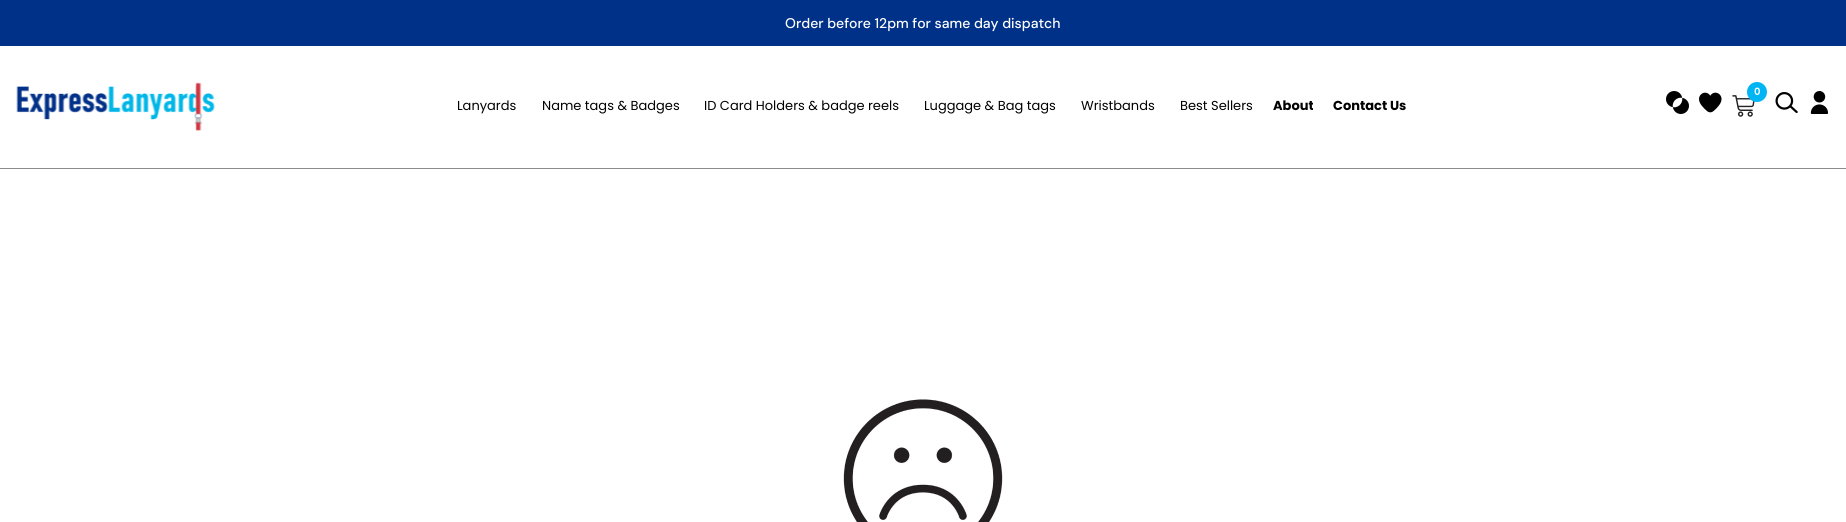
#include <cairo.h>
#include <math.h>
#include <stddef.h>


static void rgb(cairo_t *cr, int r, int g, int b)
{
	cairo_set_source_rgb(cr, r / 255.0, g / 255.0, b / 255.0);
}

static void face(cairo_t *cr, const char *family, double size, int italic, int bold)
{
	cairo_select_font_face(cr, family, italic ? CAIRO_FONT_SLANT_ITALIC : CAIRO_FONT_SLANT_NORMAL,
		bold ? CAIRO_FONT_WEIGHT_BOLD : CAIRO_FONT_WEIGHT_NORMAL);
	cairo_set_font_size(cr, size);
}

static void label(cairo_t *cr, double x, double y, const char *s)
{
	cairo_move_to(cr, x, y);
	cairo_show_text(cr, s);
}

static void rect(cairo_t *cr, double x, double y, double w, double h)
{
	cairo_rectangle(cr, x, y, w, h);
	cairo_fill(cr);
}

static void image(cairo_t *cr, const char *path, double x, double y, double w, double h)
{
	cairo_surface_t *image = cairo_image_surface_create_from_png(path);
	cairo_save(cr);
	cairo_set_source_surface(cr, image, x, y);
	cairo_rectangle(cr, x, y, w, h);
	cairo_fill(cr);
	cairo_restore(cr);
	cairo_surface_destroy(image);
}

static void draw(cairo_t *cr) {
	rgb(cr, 255, 255, 255);
	cairo_paint(cr);
	rgb(cr, 0, 49, 136);
	rect(cr, 0, 0, 1846, 46);
	face(cr, "DM Sans Medium", 14, 0, 0);
	rgb(cr, 255, 255, 255);
	label(cr, 785, 28, "Order before 12pm for same day dispatch");
	rgb(cr, 140, 140, 140);
	rect(cr, 0, 168, 1846, 1);
	image(cr, "image0.png", 16, 82, 200, 49);
	image(cr, "image1.png", 1666, 91, 23, 23);
	image(cr, "image2.png", 1699, 92, 23, 21);
	image(cr, "image3.png", 1732, 95, 23, 22);
	rgb(cr, 0, 181, 244);
	cairo_arc(cr, 1757, 92, 10, 0, 2 * M_PI);
	cairo_fill(cr);
	face(cr, "Poppins SemiBold", 10, 0, 0);
	rgb(cr, 255, 255, 255);
	label(cr, 1754, 95, "0");
	image(cr, "image4.png", 1775, 92, 23, 22);
	image(cr, "image5.png", 1810, 91, 18, 23);
	face(cr, "Poppins", 13, 0, 0);
	rgb(cr, 0, 0, 0);
	label(cr, 457, 110, "Lanyards");
	label(cr, 542, 110, "Name tags & Badges");
	label(cr, 704, 110, "ID Card Holders & badge reels");
	label(cr, 924, 110, "Luggage & Bag tags");
	label(cr, 1081, 110, "Wristbands");
	label(cr, 1180, 110, "Best Sellers");
	face(cr, "Poppins", 13, 0, 1);
	label(cr, 1273, 110, "About");
	label(cr, 1333, 110, "Contact Us");
	image(cr, "image6.png", 843, 399, 160, 123);
}

int main(void) {
	cairo_surface_t *surface = cairo_image_surface_create(CAIRO_FORMAT_RGB24, 1846, 522);
	cairo_t *cr = cairo_create(surface);
	cairo_font_options_t *options = cairo_font_options_create();
	cairo_font_options_set_hint_metrics(options, CAIRO_HINT_METRICS_OFF);
	cairo_font_options_set_hint_style(options, CAIRO_HINT_STYLE_NONE);
	cairo_set_font_options(cr, options);
	cairo_set_miter_limit(cr, 4);
	draw(cr);
	cairo_surface_write_to_png(surface, "render.png");
	cairo_font_options_destroy(options);
	cairo_destroy(cr);
	cairo_surface_destroy(surface);
	return 0;
}
